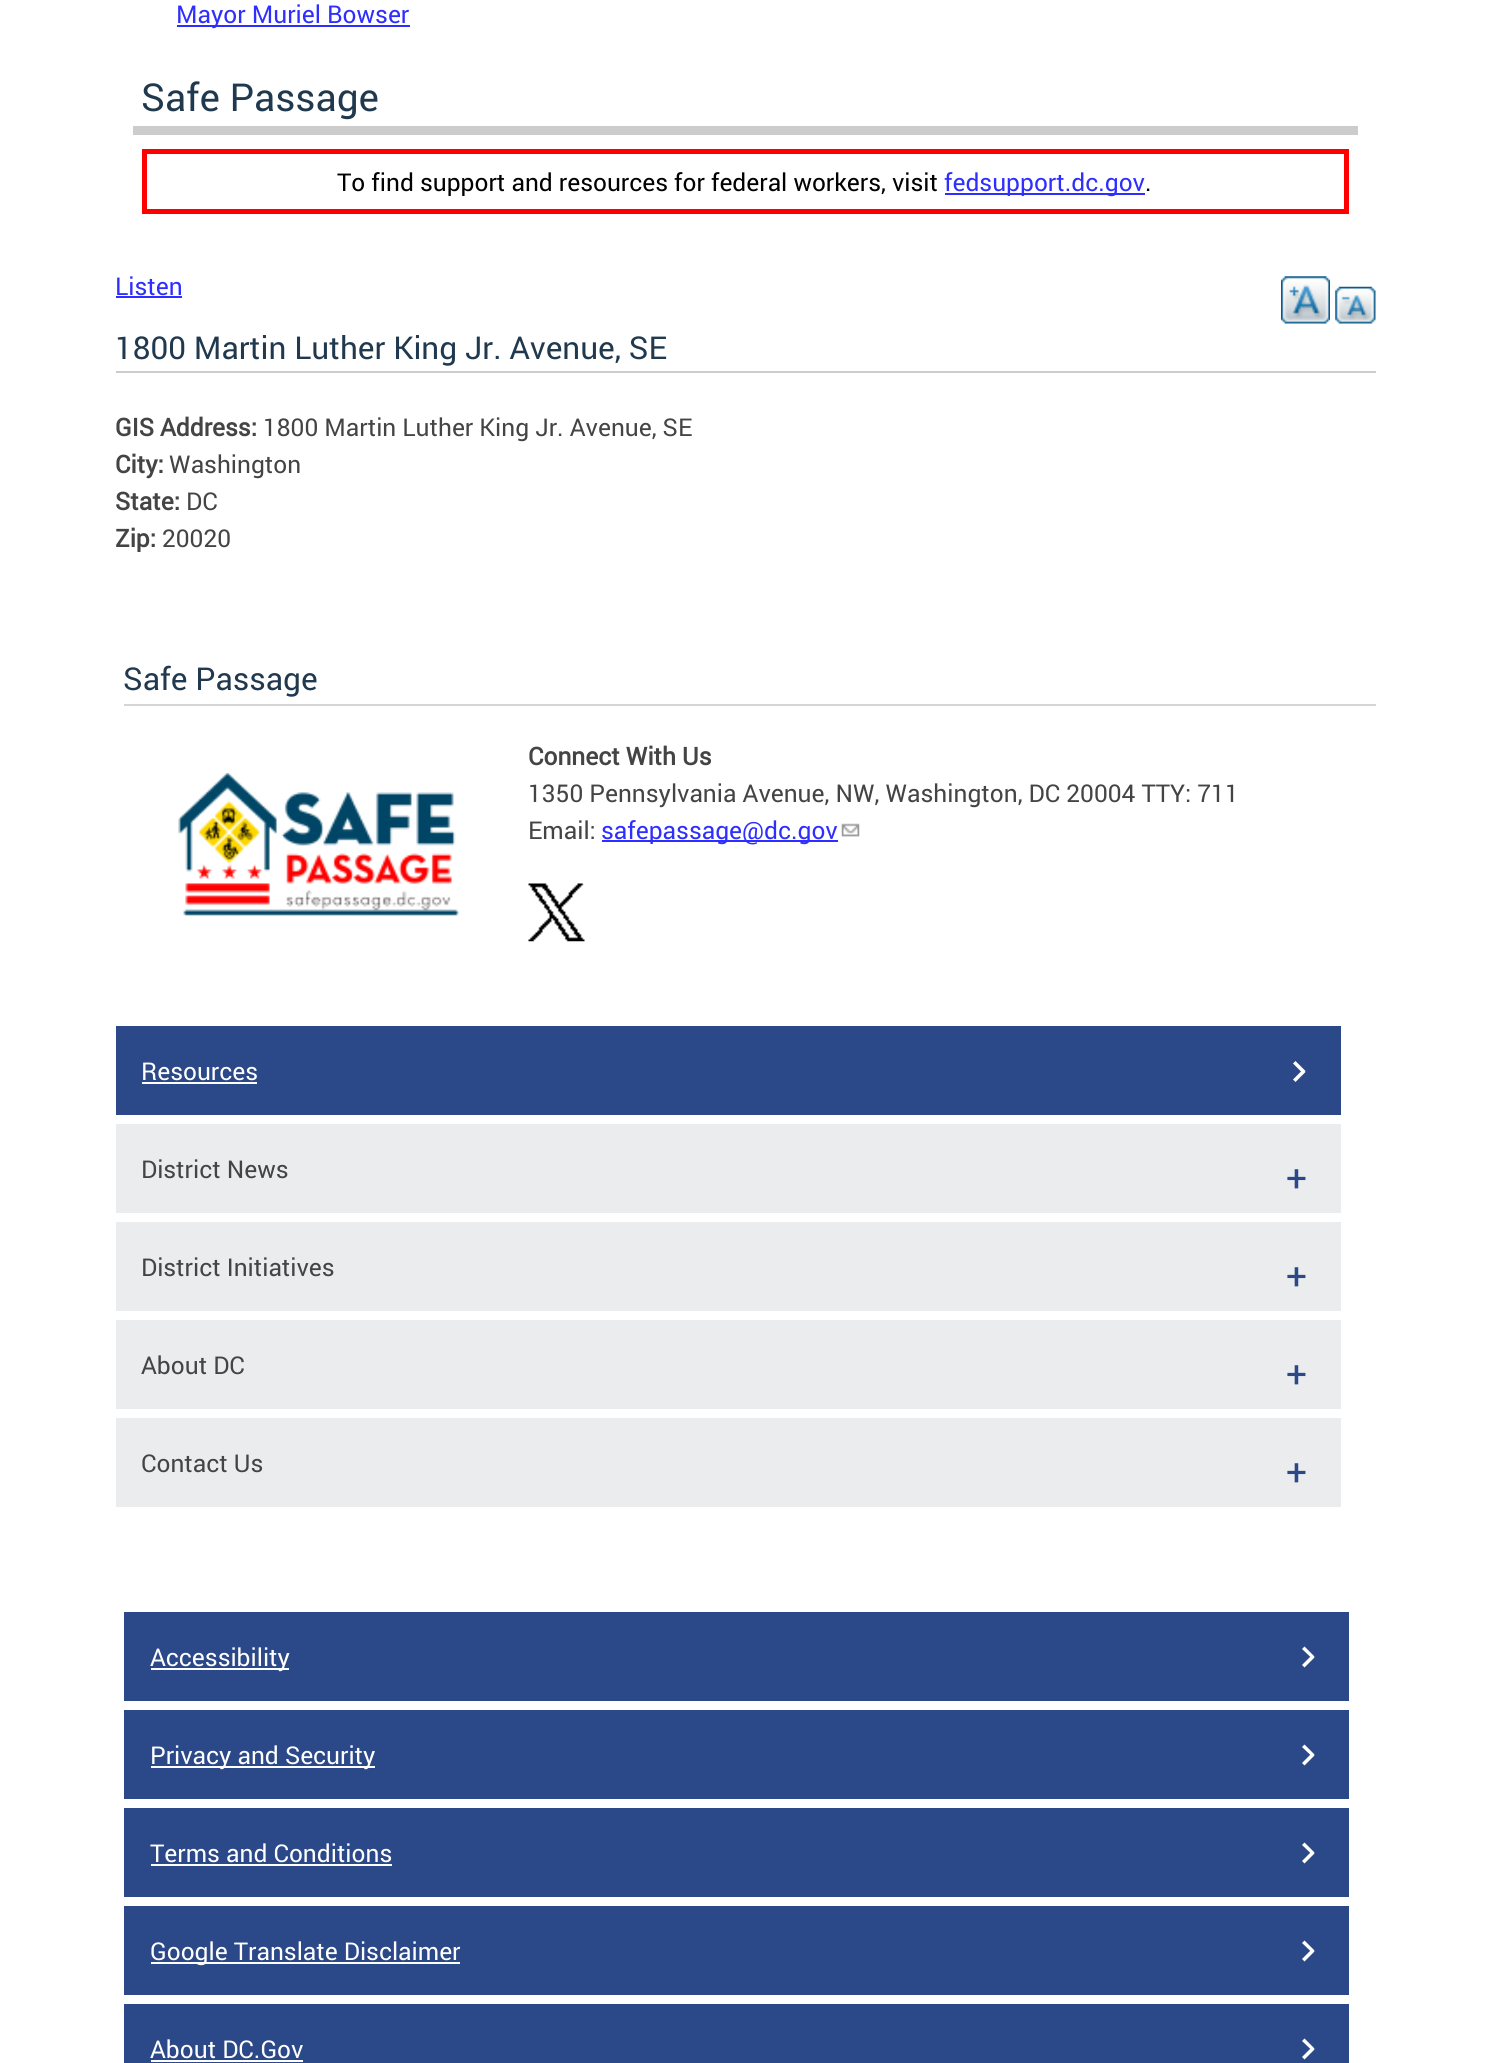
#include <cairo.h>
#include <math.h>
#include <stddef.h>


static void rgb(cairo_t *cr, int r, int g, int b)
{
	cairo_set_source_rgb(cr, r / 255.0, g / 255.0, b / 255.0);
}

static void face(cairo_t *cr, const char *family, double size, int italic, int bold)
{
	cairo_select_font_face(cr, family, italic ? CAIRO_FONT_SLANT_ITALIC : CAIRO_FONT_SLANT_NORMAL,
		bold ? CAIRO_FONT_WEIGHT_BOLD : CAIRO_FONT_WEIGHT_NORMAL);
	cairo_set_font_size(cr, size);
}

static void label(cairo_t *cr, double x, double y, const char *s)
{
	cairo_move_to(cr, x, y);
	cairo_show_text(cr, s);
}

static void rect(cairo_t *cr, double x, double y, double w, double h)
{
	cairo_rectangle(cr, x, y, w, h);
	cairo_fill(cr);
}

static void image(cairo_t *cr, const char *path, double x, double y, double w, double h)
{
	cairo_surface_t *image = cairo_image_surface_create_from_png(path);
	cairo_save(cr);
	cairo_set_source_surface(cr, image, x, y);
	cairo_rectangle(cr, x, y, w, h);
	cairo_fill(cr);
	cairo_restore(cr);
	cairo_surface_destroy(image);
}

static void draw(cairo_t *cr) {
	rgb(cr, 255, 255, 255);
	cairo_paint(cr);
	rgb(cr, 46, 46, 255);
	rect(cr, 177, 25, 233, 2);
	face(cr, "Roboto", 24.5, 0, 0);
	label(cr, 176, 23, "Mayor Muriel Bowser");
	rgb(cr, 204, 204, 204);
	rect(cr, 133, 126, 1225, 9);
	face(cr, "Roboto", 38.5, 0, 0);
	rgb(cr, 32, 57, 79);
	label(cr, 141, 111, "Safe Passage");
	cairo_rectangle(cr, 144.5, 151.5, 1202, 60);
	rgb(cr, 255, 0, 0);
	cairo_set_line_width(cr, 5);
	cairo_stroke(cr);
	face(cr, "Roboto", 24.5, 0, 0);
	rgb(cr, 0, 0, 0);
	label(cr, 337, 191, "To find support and resources for federal workers, visit");
	rgb(cr, 46, 46, 255);
	rect(cr, 945, 193, 200, 2);
	label(cr, 944, 191, "fedsupport.dc.gov");
	rgb(cr, 0, 0, 0);
	label(cr, 1145, 191, ".");
	rgb(cr, 46, 46, 255);
	label(cr, 115, 295, "Listen");
	rect(cr, 116, 296, 66, 2);
	image(cr, "image0.png", 1281, 276, 49, 48);
	image(cr, "image1.png", 1335, 286, 41, 38);
	rgb(cr, 204, 204, 204);
	rect(cr, 116, 371, 1260, 2);
	face(cr, "Roboto", 31.5, 0, 0);
	rgb(cr, 32, 57, 79);
	label(cr, 115, 359, "1800 Martin Luther King Jr. Avenue, SE");
	face(cr, "Roboto", 24.5, 0, 1);
	rgb(cr, 68, 68, 68);
	label(cr, 115, 436, "GIS Address:");
	face(cr, "Roboto", 24.5, 0, 0);
	label(cr, 263, 436, "1800 Martin Luther King Jr. Avenue, SE");
	face(cr, "Roboto", 24.5, 0, 1);
	label(cr, 115, 473, "City:");
	face(cr, "Roboto", 24.5, 0, 0);
	label(cr, 169, 473, "Washington");
	face(cr, "Roboto", 24.5, 0, 1);
	label(cr, 115, 510, "State:");
	face(cr, "Roboto", 24.5, 0, 0);
	label(cr, 186, 510, "DC");
	face(cr, "Roboto", 24.5, 0, 1);
	label(cr, 115, 547, "Zip:");
	face(cr, "Roboto", 24.5, 0, 0);
	label(cr, 162, 547, "20020");
	rgb(cr, 213, 213, 213);
	rect(cr, 124, 704, 1252, 2);
	face(cr, "Roboto", 31.5, 0, 0);
	rgb(cr, 32, 57, 79);
	label(cr, 123, 690, "Safe Passage");
	image(cr, "image2.png", 178, 772, 281, 144);
	face(cr, "Roboto", 24.5, 0, 1);
	rgb(cr, 68, 68, 68);
	label(cr, 528, 765, "Connect With Us");
	face(cr, "Roboto", 24.5, 0, 0);
	label(cr, 528, 802, "1350 Pennsylvania Avenue, NW, Washington, DC 20004 TTY: 711");
	label(cr, 528, 839, "Email:");
	rgb(cr, 46, 46, 255);
	rect(cr, 602, 840, 236, 2);
	label(cr, 601, 839, "safepassage@dc.gov");
	image(cr, "image3.png", 841, 823, 19, 14);
	image(cr, "image4.png", 528, 883, 57, 59);
	rgb(cr, 43, 72, 136);
	rect(cr, 116, 1026, 1225, 89);
	rgb(cr, 255, 255, 255);
	label(cr, 141, 1080, "Resources");
	rect(cr, 142, 1082, 115, 2);
	cairo_new_path(cr);
	cairo_move_to(cr, 1305.5, 1071);
	cairo_line_to(cr, 1303, 1073.5);
	cairo_line_to(cr, 1293, 1063.5);
	cairo_line_to(cr, 1295.5, 1061);
	cairo_close_path(cr);
	cairo_fill(cr);
	cairo_new_path(cr);
	cairo_move_to(cr, 1303, 1069.5);
	cairo_line_to(cr, 1305.5, 1072);
	cairo_line_to(cr, 1295.5, 1082);
	cairo_line_to(cr, 1293, 1079.5);
	cairo_close_path(cr);
	cairo_fill(cr);
	rgb(cr, 235, 236, 238);
	rect(cr, 116, 1124, 1225, 89);
	rgb(cr, 68, 68, 68);
	label(cr, 141, 1178, "District News");
	face(cr, "Roboto", 37, 0, 0);
	rgb(cr, 43, 72, 136);
	label(cr, 1286, 1191, "+");
	rgb(cr, 235, 236, 238);
	rect(cr, 116, 1222, 1225, 89);
	face(cr, "Roboto", 24.5, 0, 0);
	rgb(cr, 68, 68, 68);
	label(cr, 141, 1276, "District Initiatives");
	face(cr, "Roboto", 37, 0, 0);
	rgb(cr, 43, 72, 136);
	label(cr, 1286, 1289, "+");
	rgb(cr, 235, 236, 238);
	rect(cr, 116, 1320, 1225, 89);
	face(cr, "Roboto", 24.5, 0, 0);
	rgb(cr, 68, 68, 68);
	label(cr, 141, 1374, "About DC");
	face(cr, "Roboto", 37, 0, 0);
	rgb(cr, 43, 72, 136);
	label(cr, 1286, 1387, "+");
	rgb(cr, 235, 236, 238);
	rect(cr, 116, 1418, 1225, 89);
	face(cr, "Roboto", 24.5, 0, 0);
	rgb(cr, 68, 68, 68);
	label(cr, 141, 1472, "Contact Us");
	face(cr, "Roboto", 37, 0, 0);
	rgb(cr, 43, 72, 136);
	label(cr, 1286, 1485, "+");
	rect(cr, 124, 1612, 1225, 89);
	rgb(cr, 255, 255, 255);
	rect(cr, 151, 1668, 138, 2);
	face(cr, "Roboto", 24.5, 0, 0);
	label(cr, 150, 1666, "Accessibility");
	cairo_new_path(cr);
	cairo_move_to(cr, 1314.5, 1656.5);
	cairo_line_to(cr, 1312, 1658.5);
	cairo_line_to(cr, 1302, 1649);
	cairo_line_to(cr, 1304.5, 1646.5);
	cairo_close_path(cr);
	cairo_fill(cr);
	cairo_new_path(cr);
	cairo_move_to(cr, 1312, 1655);
	cairo_line_to(cr, 1314.5, 1657.5);
	cairo_line_to(cr, 1304.5, 1667.5);
	cairo_line_to(cr, 1302, 1665);
	cairo_close_path(cr);
	cairo_fill(cr);
	rgb(cr, 43, 72, 136);
	rect(cr, 124, 1710, 1225, 89);
	rgb(cr, 255, 255, 255);
	rect(cr, 151, 1766, 224, 2);
	label(cr, 150, 1764, "Privacy and Security");
	cairo_new_path(cr);
	cairo_move_to(cr, 1314.5, 1754.5);
	cairo_line_to(cr, 1312, 1756.5);
	cairo_line_to(cr, 1302, 1747);
	cairo_line_to(cr, 1304.5, 1744.5);
	cairo_close_path(cr);
	cairo_fill(cr);
	cairo_new_path(cr);
	cairo_move_to(cr, 1312, 1753);
	cairo_line_to(cr, 1314.5, 1755.5);
	cairo_line_to(cr, 1304.5, 1765.5);
	cairo_line_to(cr, 1302, 1763);
	cairo_close_path(cr);
	cairo_fill(cr);
	rgb(cr, 43, 72, 136);
	rect(cr, 124, 1808, 1225, 89);
	rgb(cr, 255, 255, 255);
	label(cr, 150, 1862, "Terms and Conditions");
	rect(cr, 151, 1864, 241, 2);
	cairo_new_path(cr);
	cairo_move_to(cr, 1314.5, 1852.5);
	cairo_line_to(cr, 1312, 1854.5);
	cairo_line_to(cr, 1302, 1845);
	cairo_line_to(cr, 1304.5, 1842.5);
	cairo_close_path(cr);
	cairo_fill(cr);
	cairo_new_path(cr);
	cairo_move_to(cr, 1312, 1851);
	cairo_line_to(cr, 1314.5, 1853.5);
	cairo_line_to(cr, 1304.5, 1863.5);
	cairo_line_to(cr, 1302, 1861);
	cairo_close_path(cr);
	cairo_fill(cr);
	rgb(cr, 43, 72, 136);
	rect(cr, 124, 1906, 1225, 89);
	rgb(cr, 255, 255, 255);
	rect(cr, 151, 1962, 309, 2);
	label(cr, 150, 1960, "Google Translate Disclaimer");
	cairo_new_path(cr);
	cairo_move_to(cr, 1314.5, 1950.5);
	cairo_line_to(cr, 1312, 1952.5);
	cairo_line_to(cr, 1302, 1943);
	cairo_line_to(cr, 1304.5, 1940.5);
	cairo_close_path(cr);
	cairo_fill(cr);
	cairo_new_path(cr);
	cairo_move_to(cr, 1312, 1949);
	cairo_line_to(cr, 1314.5, 1951.5);
	cairo_line_to(cr, 1304.5, 1961.5);
	cairo_line_to(cr, 1302, 1959);
	cairo_close_path(cr);
	cairo_fill(cr);
	rgb(cr, 43, 72, 136);
	rect(cr, 124, 2004, 1225, 59);
	rgb(cr, 255, 255, 255);
	label(cr, 150, 2058, "About DC.Gov");
	rect(cr, 151, 2060, 152, 2);
	cairo_new_path(cr);
	cairo_move_to(cr, 1314.5, 2048.5);
	cairo_line_to(cr, 1312, 2050.5);
	cairo_line_to(cr, 1302, 2041);
	cairo_line_to(cr, 1304.5, 2038.5);
	cairo_close_path(cr);
	cairo_fill(cr);
	cairo_new_path(cr);
	cairo_move_to(cr, 1312, 2047);
	cairo_line_to(cr, 1314.5, 2049.5);
	cairo_line_to(cr, 1304.5, 2059.5);
	cairo_line_to(cr, 1302, 2057);
	cairo_close_path(cr);
	cairo_fill(cr);
}

int main(void) {
	cairo_surface_t *surface = cairo_image_surface_create(CAIRO_FORMAT_RGB24, 1489, 2063);
	cairo_t *cr = cairo_create(surface);
	cairo_font_options_t *options = cairo_font_options_create();
	cairo_font_options_set_hint_metrics(options, CAIRO_HINT_METRICS_OFF);
	cairo_font_options_set_hint_style(options, CAIRO_HINT_STYLE_NONE);
	cairo_set_font_options(cr, options);
	cairo_set_miter_limit(cr, 4);
	draw(cr);
	cairo_surface_write_to_png(surface, "render.png");
	cairo_font_options_destroy(options);
	cairo_destroy(cr);
	cairo_surface_destroy(surface);
	return 0;
}
